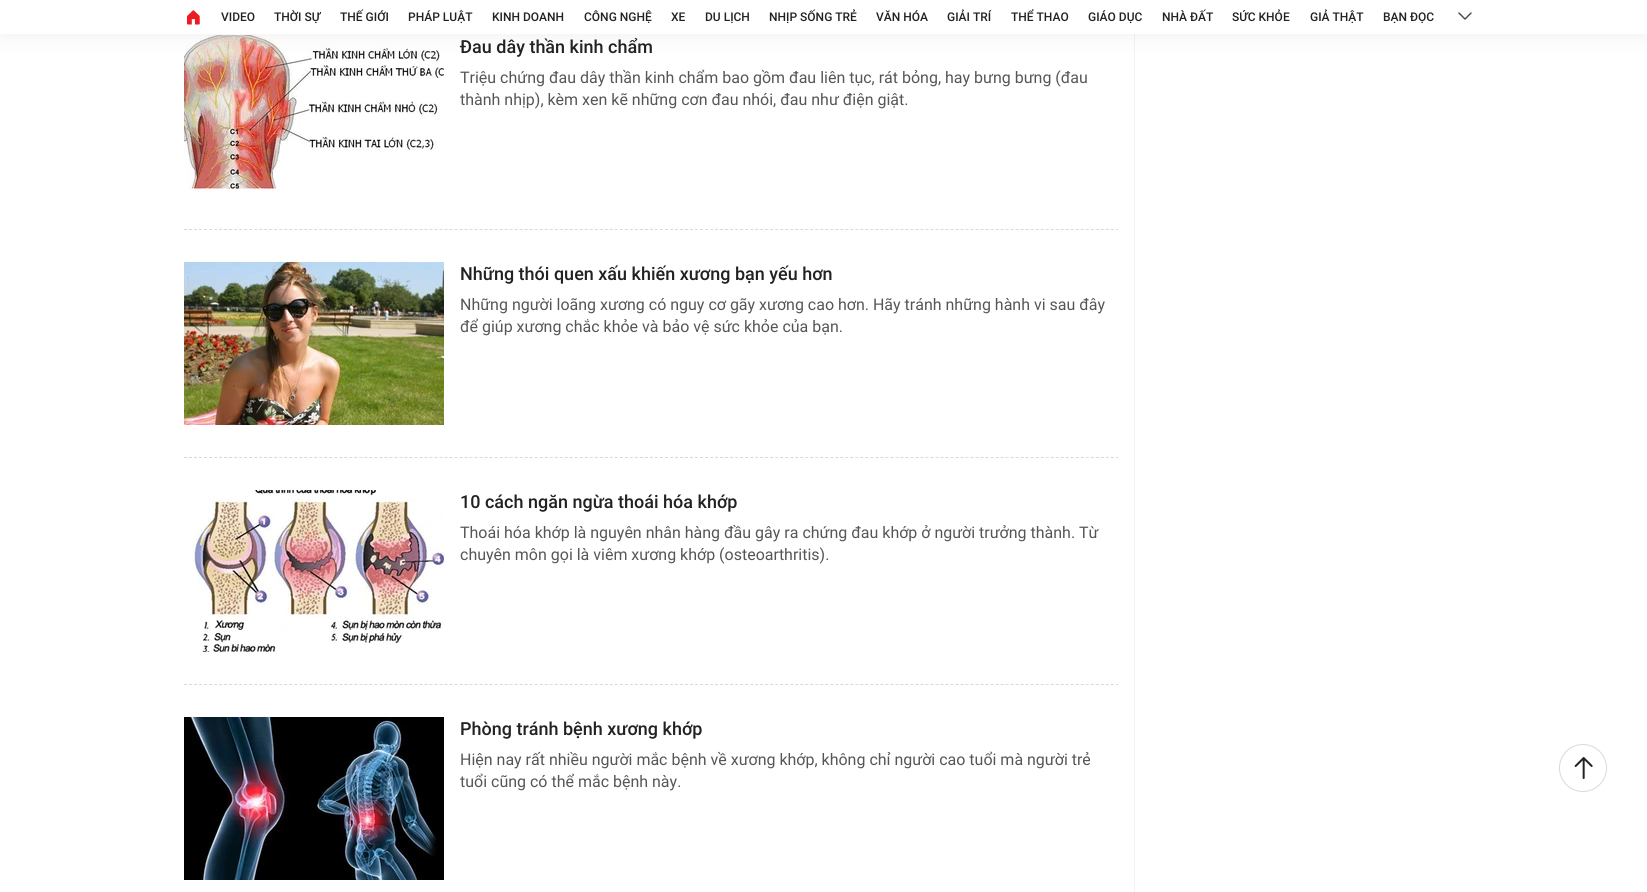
#include <cairo.h>
#include <math.h>
#include <stddef.h>


static void rgb(cairo_t *cr, int r, int g, int b)
{
	cairo_set_source_rgb(cr, r / 255.0, g / 255.0, b / 255.0);
}

static void face(cairo_t *cr, const char *family, double size, int italic, int bold)
{
	cairo_select_font_face(cr, family, italic ? CAIRO_FONT_SLANT_ITALIC : CAIRO_FONT_SLANT_NORMAL,
		bold ? CAIRO_FONT_WEIGHT_BOLD : CAIRO_FONT_WEIGHT_NORMAL);
	cairo_set_font_size(cr, size);
}

static void label(cairo_t *cr, double x, double y, const char *s)
{
	cairo_move_to(cr, x, y);
	cairo_show_text(cr, s);
}

static void rect(cairo_t *cr, double x, double y, double w, double h)
{
	cairo_rectangle(cr, x, y, w, h);
	cairo_fill(cr);
}

static void rrect(cairo_t *cr, double x, double y, double w, double h, double r)
{
	cairo_new_sub_path(cr);
	cairo_arc(cr, x + w - r, y + h - r, r, 0, M_PI / 2);
	cairo_arc(cr, x + r, y + h - r, r, M_PI / 2, M_PI);
	cairo_arc(cr, x + r, y + r, r, M_PI, 1.5 * M_PI);
	cairo_arc(cr, x + w - r, y + r, r, 1.5 * M_PI, 2 * M_PI);
	cairo_close_path(cr);
}

static void soft_shadow(cairo_t *cr, double x, double y, double w, double h, double r, double blur, double alpha)
{
	cairo_push_group_with_content(cr, CAIRO_CONTENT_ALPHA);
	cairo_set_operator(cr, CAIRO_OPERATOR_SOURCE);
	for (int i = 15; i >= -15 && fmin(w, h) + blur * i / 3 > 0; i -= 2) {
		double e = blur * i / 6;
		cairo_set_source_rgba(cr, 0, 0, 0, alpha * erfc((i - 1) / 8.5) / 2);
		rrect(cr, x - e, y - e, w + 2 * e, h + 2 * e, fmax(0, fmin(r + e + blur * .6, fmin(w, h) / 2 + e)));
		cairo_fill(cr);
	}
	cairo_pattern_t *soft = cairo_pop_group(cr);
	cairo_mask(cr, soft);
	cairo_pattern_destroy(soft);
}

static void image(cairo_t *cr, const char *path, double x, double y, double w, double h)
{
	cairo_surface_t *image = cairo_image_surface_create_from_png(path);
	cairo_save(cr);
	cairo_set_source_surface(cr, image, x, y);
	cairo_rectangle(cr, x, y, w, h);
	cairo_fill(cr);
	cairo_restore(cr);
	cairo_surface_destroy(image);
}

static void draw(cairo_t *cr) {
	rgb(cr, 255, 255, 255);
	cairo_paint(cr);
	rgb(cr, 242, 242, 242);
	rect(cr, 1134, 34, 1, 858);
	image(cr, "image2.png", 184, 35, 260, 162);
	rgb(cr, 0, 0, 0);
	soft_shadow(cr, 0, 4, 1647, 34, 0, 10, 0.05);
	rgb(cr, 255, 255, 255);
	rect(cr, 0, 0, 1647, 34);
	image(cr, "image0.png", 187, 10, 13, 15);
	face(cr, "Roboto Medium", 12, 0, 0);
	rgb(cr, 34, 34, 34);
	label(cr, 221, 21, "VIDEO");
	label(cr, 274, 21, "THỜI SỰ");
	label(cr, 340, 21, "THẾ GIỚI");
	label(cr, 408, 21, "PHÁP LUẬT");
	label(cr, 492, 21, "KINH DOANH");
	label(cr, 584, 21, "CÔNG NGHỆ");
	label(cr, 671, 21, "XE");
	label(cr, 705, 21, "DU LỊCH");
	label(cr, 769, 21, "NHỊP SỐNG TRẺ");
	label(cr, 876, 21, "VĂN HÓA");
	label(cr, 947, 21, "GIẢI TRÍ");
	label(cr, 1011, 21, "THỂ THAO");
	label(cr, 1088, 21, "GIÁO DỤC");
	label(cr, 1162, 21, "NHÀ ĐẤT");
	label(cr, 1232, 21, "SỨC KHỎE");
	label(cr, 1310, 21, "GIẢ THẬT");
	label(cr, 1383, 21, "BẠN ĐỌC");
	image(cr, "image1.png", 1457, 12, 16, 8);
	face(cr, "Roboto Medium", 18, 0, 0);
	label(cr, 460, 53, "Đau dây thần kinh chẩm");
	face(cr, "Roboto", 16, 0, 0);
	rgb(cr, 86, 86, 86);
	label(cr, 460, 83, "Triệu chứng đau dây thần kinh chẩm bao gồm đau liên tục, rát bỏng, hay bưng bưng (đau");
	label(cr, 460, 105, "thành nhịp), kèm xen kẽ những cơn đau nhói, đau như điện giật.");
	cairo_new_path(cr);
	cairo_move_to(cr, 184, 229.5);
	cairo_line_to(cr, 1118, 229.5);
	rgb(cr, 217, 217, 217);
	cairo_set_line_width(cr, 1);
	cairo_set_dash(cr, (double[]){3, 2.01}, 2, 0);
	cairo_stroke(cr);
	image(cr, "image3.png", 184, 262, 260, 163);
	face(cr, "Roboto Medium", 18, 0, 0);
	rgb(cr, 34, 34, 34);
	label(cr, 460, 280, "Những thói quen xấu khiến xương bạn yếu hơn");
	face(cr, "Roboto", 16, 0, 0);
	rgb(cr, 86, 86, 86);
	label(cr, 460, 310, "Những người loãng xương có nguy cơ gãy xương cao hơn. Hãy tránh những hành vi sau đây");
	label(cr, 460, 332, "để giúp xương chắc khỏe và bảo vệ sức khỏe của bạn.");
	cairo_new_path(cr);
	cairo_move_to(cr, 184, 457.5);
	cairo_line_to(cr, 1118, 457.5);
	rgb(cr, 217, 217, 217);
	cairo_stroke(cr);
	image(cr, "image4.png", 184, 490, 260, 162);
	face(cr, "Roboto Medium", 18, 0, 0);
	rgb(cr, 34, 34, 34);
	label(cr, 460, 508, "10 cách ngăn ngừa thoái hóa khớp");
	face(cr, "Roboto", 16, 0, 0);
	rgb(cr, 86, 86, 86);
	label(cr, 460, 538, "Thoái hóa khớp là nguyên nhân hàng đầu gây ra chứng đau khớp ở người trưởng thành. Từ");
	label(cr, 460, 560, "chuyên môn gọi là viêm xương khớp (osteoarthritis).");
	cairo_new_path(cr);
	cairo_move_to(cr, 184, 684.5);
	cairo_line_to(cr, 1118, 684.5);
	rgb(cr, 217, 217, 217);
	cairo_stroke(cr);
	image(cr, "image5.png", 184, 717, 260, 163);
	face(cr, "Roboto Medium", 18, 0, 0);
	rgb(cr, 34, 34, 34);
	label(cr, 460, 735, "Phòng tránh bệnh xương khớp");
	face(cr, "Roboto", 16, 0, 0);
	rgb(cr, 86, 86, 86);
	label(cr, 460, 765, "Hiện nay rất nhiều người mắc bệnh về xương khớp, không chỉ người cao tuổi mà người trẻ");
	label(cr, 460, 787, "tuổi cũng có thể mắc bệnh này.");
	cairo_new_path(cr);
	cairo_arc(cr, 1583, 768, 23.5, 0, 2 * M_PI);
	rgb(cr, 217, 217, 217);
	cairo_set_dash(cr, NULL, 0, 0);
	cairo_stroke(cr);
	image(cr, "image6.png", 1574, 757, 19, 22);
}

int main(void) {
	cairo_surface_t *surface = cairo_image_surface_create(CAIRO_FORMAT_RGB24, 1647, 892);
	cairo_t *cr = cairo_create(surface);
	cairo_font_options_t *options = cairo_font_options_create();
	cairo_font_options_set_hint_metrics(options, CAIRO_HINT_METRICS_OFF);
	cairo_font_options_set_hint_style(options, CAIRO_HINT_STYLE_NONE);
	cairo_set_font_options(cr, options);
	cairo_set_miter_limit(cr, 4);
	draw(cr);
	cairo_surface_write_to_png(surface, "render.png");
	cairo_font_options_destroy(options);
	cairo_destroy(cr);
	cairo_surface_destroy(surface);
	return 0;
}
